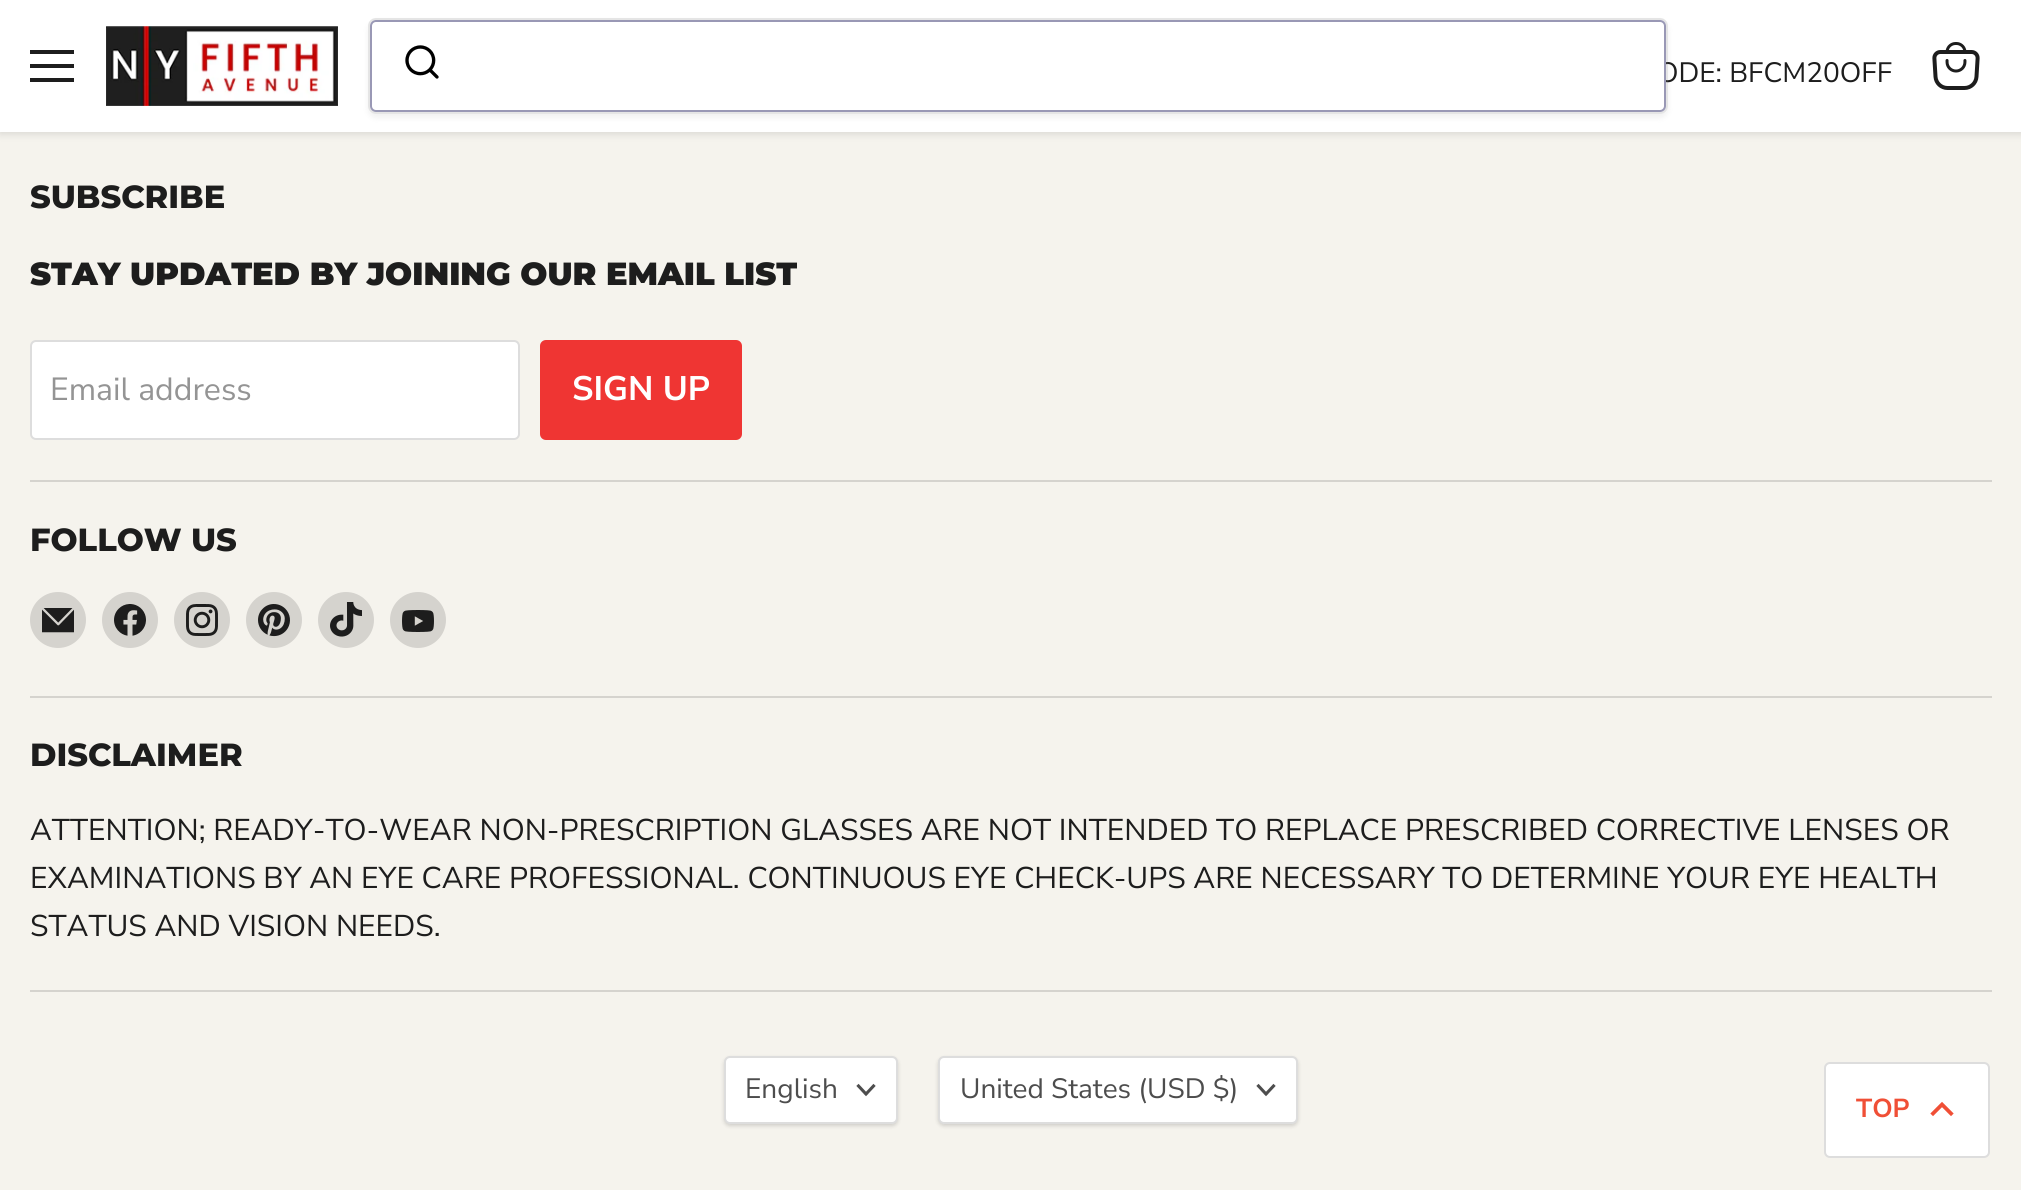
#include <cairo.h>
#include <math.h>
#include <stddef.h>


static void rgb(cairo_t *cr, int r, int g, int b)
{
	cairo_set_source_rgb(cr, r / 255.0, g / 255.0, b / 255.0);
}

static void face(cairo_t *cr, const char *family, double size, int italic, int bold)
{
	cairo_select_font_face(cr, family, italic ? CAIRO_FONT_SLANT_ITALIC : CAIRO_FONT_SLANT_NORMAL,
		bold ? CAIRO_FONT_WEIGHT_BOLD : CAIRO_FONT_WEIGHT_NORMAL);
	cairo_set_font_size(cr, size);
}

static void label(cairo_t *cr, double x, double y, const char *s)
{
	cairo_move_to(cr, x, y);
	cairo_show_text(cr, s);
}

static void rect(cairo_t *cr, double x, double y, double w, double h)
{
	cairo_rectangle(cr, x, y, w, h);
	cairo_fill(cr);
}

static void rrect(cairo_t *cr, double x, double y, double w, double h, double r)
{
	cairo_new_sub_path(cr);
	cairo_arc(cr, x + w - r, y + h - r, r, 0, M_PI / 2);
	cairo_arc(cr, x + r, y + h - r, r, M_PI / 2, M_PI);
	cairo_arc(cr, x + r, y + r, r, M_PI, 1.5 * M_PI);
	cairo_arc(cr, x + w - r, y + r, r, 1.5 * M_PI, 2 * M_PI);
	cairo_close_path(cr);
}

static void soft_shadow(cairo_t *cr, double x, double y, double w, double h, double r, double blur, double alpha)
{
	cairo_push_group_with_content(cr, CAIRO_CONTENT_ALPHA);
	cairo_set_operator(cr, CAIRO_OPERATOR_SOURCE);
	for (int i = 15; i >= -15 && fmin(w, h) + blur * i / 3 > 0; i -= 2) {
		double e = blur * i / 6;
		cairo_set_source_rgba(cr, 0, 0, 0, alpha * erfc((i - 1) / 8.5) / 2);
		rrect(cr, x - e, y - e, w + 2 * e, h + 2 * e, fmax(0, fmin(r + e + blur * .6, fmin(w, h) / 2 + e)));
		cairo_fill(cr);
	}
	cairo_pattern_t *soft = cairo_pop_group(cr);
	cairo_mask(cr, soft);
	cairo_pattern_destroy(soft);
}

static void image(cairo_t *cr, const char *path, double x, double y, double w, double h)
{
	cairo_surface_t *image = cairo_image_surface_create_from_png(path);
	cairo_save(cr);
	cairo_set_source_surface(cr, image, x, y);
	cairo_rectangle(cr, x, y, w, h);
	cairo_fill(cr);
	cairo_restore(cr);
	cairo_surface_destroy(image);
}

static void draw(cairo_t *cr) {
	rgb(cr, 245, 243, 237);
	cairo_paint(cr);
	rgb(cr, 128, 128, 128);
	soft_shadow(cr, 0, 2, 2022, 132, 0, 4, 0.25);
	rgb(cr, 255, 255, 255);
	rect(cr, 0, 0, 2021, 132);
	rgb(cr, 29, 29, 29);
	rect(cr, 30, 50, 44, 4);
	rect(cr, 30, 64, 44, 4);
	rect(cr, 30, 78, 44, 4);
	image(cr, "image0.png", 106, 26, 232, 80);
	cairo_save(cr);
	cairo_set_fill_rule(cr, CAIRO_FILL_RULE_EVEN_ODD);
	cairo_new_path(cr);
	cairo_move_to(cr, 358, 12);
	cairo_line_to(cr, 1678, 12);
	cairo_line_to(cr, 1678, 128);
	cairo_line_to(cr, 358, 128);
	cairo_close_path(cr);
	cairo_move_to(cr, 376, 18);
	cairo_line_to(cr, 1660, 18);
	cairo_curve_to(cr, 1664.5, 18, 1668, 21.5, 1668, 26);
	cairo_line_to(cr, 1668, 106);
	cairo_curve_to(cr, 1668, 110.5, 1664.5, 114, 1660, 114);
	cairo_line_to(cr, 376, 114);
	cairo_curve_to(cr, 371.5, 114, 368, 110.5, 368, 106);
	cairo_line_to(cr, 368, 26);
	cairo_curve_to(cr, 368, 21.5, 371.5, 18, 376, 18);
	cairo_close_path(cr);
	cairo_clip(cr);
	rgb(cr, 128, 128, 128);
	soft_shadow(cr, 368, 22, 1300, 96, 8, 3, 0.11);
	cairo_restore(cr);
	face(cr, "Nunito Sans", 28, 0, 0);
	label(cr, 1657, 82, "ODE: BFCM20OFF");
	rrect(cr, 369, 19, 1298, 94, 7);
	cairo_set_source_rgba(cr, 0.502, 0.502, 0.502, 0.2);
	cairo_stroke(cr);
	rgb(cr, 255, 255, 255);
	rrect(cr, 371, 21, 1294, 90, 5);
	cairo_fill_preserve(cr);
	rgb(cr, 153, 152, 181);
	cairo_stroke(cr);
	image(cr, "image1.png", 405, 45, 34, 34);
	image(cr, "image2.png", 1932, 42, 48, 48);
	rgb(cr, 213, 211, 206);
	rect(cr, 30, 480, 1962, 2);
	face(cr, "Montserrat ExtraBold", 32, 0, 0);
	rgb(cr, 29, 29, 29);
	label(cr, 30, 208, "SUBSCRIBE");
	face(cr, "Montserrat Black", 32, 0, 0);
	label(cr, 30, 285, "STAY UPDATED BY JOINING OUR EMAIL LIST");
	rgb(cr, 255, 255, 255);
	rrect(cr, 31, 341, 488, 98, 5);
	cairo_fill_preserve(cr);
	rgb(cr, 221, 221, 221);
	cairo_stroke(cr);
	face(cr, "Nunito Sans", 32, 0, 0);
	rgb(cr, 148, 148, 148);
	label(cr, 50, 400, "Email address");
	rgb(cr, 239, 53, 51);
	rrect(cr, 541, 341, 200, 98, 5);
	cairo_fill_preserve(cr);
	cairo_stroke(cr);
	face(cr, "Nunito Sans", 34, 0, 1);
	rgb(cr, 255, 255, 255);
	label(cr, 572, 400, "SIGN UP");
	rgb(cr, 213, 211, 206);
	rect(cr, 30, 696, 1962, 2);
	face(cr, "Montserrat ExtraBold", 32, 0, 0);
	rgb(cr, 29, 29, 29);
	label(cr, 30, 551, "FOLLOW US");
	rgb(cr, 213, 211, 206);
	cairo_new_path(cr);
	cairo_arc(cr, 58, 620, 28, 0, 2 * M_PI);
	cairo_fill(cr);
	image(cr, "image3.png", 42, 608, 32, 25);
	cairo_arc(cr, 130, 620, 28, 0, 2 * M_PI);
	cairo_fill(cr);
	image(cr, "image4.png", 114, 604, 32, 32);
	cairo_arc(cr, 202, 620, 28, 0, 2 * M_PI);
	cairo_fill(cr);
	image(cr, "image5.png", 186, 604, 32, 32);
	cairo_arc(cr, 274, 620, 28, 0, 2 * M_PI);
	cairo_fill(cr);
	image(cr, "image6.png", 258, 604, 32, 33);
	cairo_arc(cr, 346, 620, 28, 0, 2 * M_PI);
	cairo_fill(cr);
	image(cr, "image7.png", 330, 602, 32, 35);
	cairo_arc(cr, 418, 620, 28, 0, 2 * M_PI);
	cairo_fill(cr);
	image(cr, "image8.png", 402, 610, 32, 22);
	rect(cr, 30, 990, 1962, 2);
	rgb(cr, 29, 29, 29);
	label(cr, 30, 766, "DISCLAIMER");
	face(cr, "Nunito Sans", 30, 0, 0);
	label(cr, 30, 840, "ATTENTION; READY-TO-WEAR NON-PRESCRIPTION GLASSES ARE NOT INTENDED TO REPLACE PRESCRIBED CORRECTIVE LENSES OR");
	label(cr, 30, 888, "EXAMINATIONS BY AN EYE CARE PROFESSIONAL. CONTINUOUS EYE CHECK-UPS ARE NECESSARY TO DETERMINE YOUR EYE HEALTH");
	label(cr, 30, 936, "STATUS AND VISION NEEDS.");
	rgb(cr, 0, 0, 0);
	soft_shadow(cr, 724, 1058, 174, 68, 6, 2, 0.15);
	rgb(cr, 255, 255, 255);
	rrect(cr, 725, 1057, 172, 66, 5);
	cairo_fill_preserve(cr);
	rgb(cr, 221, 221, 221);
	cairo_stroke(cr);
	face(cr, "Nunito Sans", 28, 0, 0);
	rgb(cr, 77, 77, 77);
	label(cr, 745, 1098, "English");
	cairo_new_path(cr);
	cairo_move_to(cr, 866, 1094);
	cairo_line_to(cr, 873.5, 1086);
	cairo_move_to(cr, 866, 1094);
	cairo_line_to(cr, 858.5, 1086);
	cairo_set_line_width(cr, 3.1);
	cairo_set_line_cap(cr, CAIRO_LINE_CAP_SQUARE);
	cairo_stroke(cr);
	rgb(cr, 0, 0, 0);
	soft_shadow(cr, 938, 1058, 360, 68, 6, 2, 0.15);
	rgb(cr, 255, 255, 255);
	rrect(cr, 939, 1057, 358, 66, 5);
	cairo_fill_preserve(cr);
	rgb(cr, 221, 221, 221);
	cairo_set_line_width(cr, 2);
	cairo_set_line_cap(cr, CAIRO_LINE_CAP_BUTT);
	cairo_stroke(cr);
	rgb(cr, 77, 77, 77);
	label(cr, 960, 1098, "United States (USD $)");
	cairo_new_path(cr);
	cairo_move_to(cr, 1266, 1094);
	cairo_line_to(cr, 1273.5, 1086);
	cairo_move_to(cr, 1266, 1094);
	cairo_line_to(cr, 1258.5, 1086);
	cairo_set_line_width(cr, 3.1);
	cairo_set_line_cap(cr, CAIRO_LINE_CAP_SQUARE);
	cairo_stroke(cr);
	rgb(cr, 255, 255, 255);
	rrect(cr, 1825, 1063, 164, 94, 5);
	cairo_fill_preserve(cr);
	rgb(cr, 221, 221, 221);
	cairo_set_line_width(cr, 2);
	cairo_set_line_cap(cr, CAIRO_LINE_CAP_BUTT);
	cairo_stroke(cr);
	face(cr, "Nunito Sans", 26, 0, 1);
	rgb(cr, 240, 79, 54);
	label(cr, 1856, 1117, "TOP");
	cairo_new_path(cr);
	cairo_move_to(cr, 1942, 1104.5);
	cairo_line_to(cr, 1933, 1113.5);
	cairo_move_to(cr, 1942, 1104.5);
	cairo_line_to(cr, 1951, 1113.5);
	cairo_set_line_width(cr, 3.8);
	cairo_set_line_cap(cr, CAIRO_LINE_CAP_SQUARE);
	cairo_stroke(cr);
}

int main(void) {
	cairo_surface_t *surface = cairo_image_surface_create(CAIRO_FORMAT_RGB24, 2021, 1190);
	cairo_t *cr = cairo_create(surface);
	cairo_font_options_t *options = cairo_font_options_create();
	cairo_font_options_set_hint_metrics(options, CAIRO_HINT_METRICS_OFF);
	cairo_font_options_set_hint_style(options, CAIRO_HINT_STYLE_NONE);
	cairo_set_font_options(cr, options);
	cairo_set_miter_limit(cr, 4);
	draw(cr);
	cairo_surface_write_to_png(surface, "render.png");
	cairo_font_options_destroy(options);
	cairo_destroy(cr);
	cairo_surface_destroy(surface);
	return 0;
}
